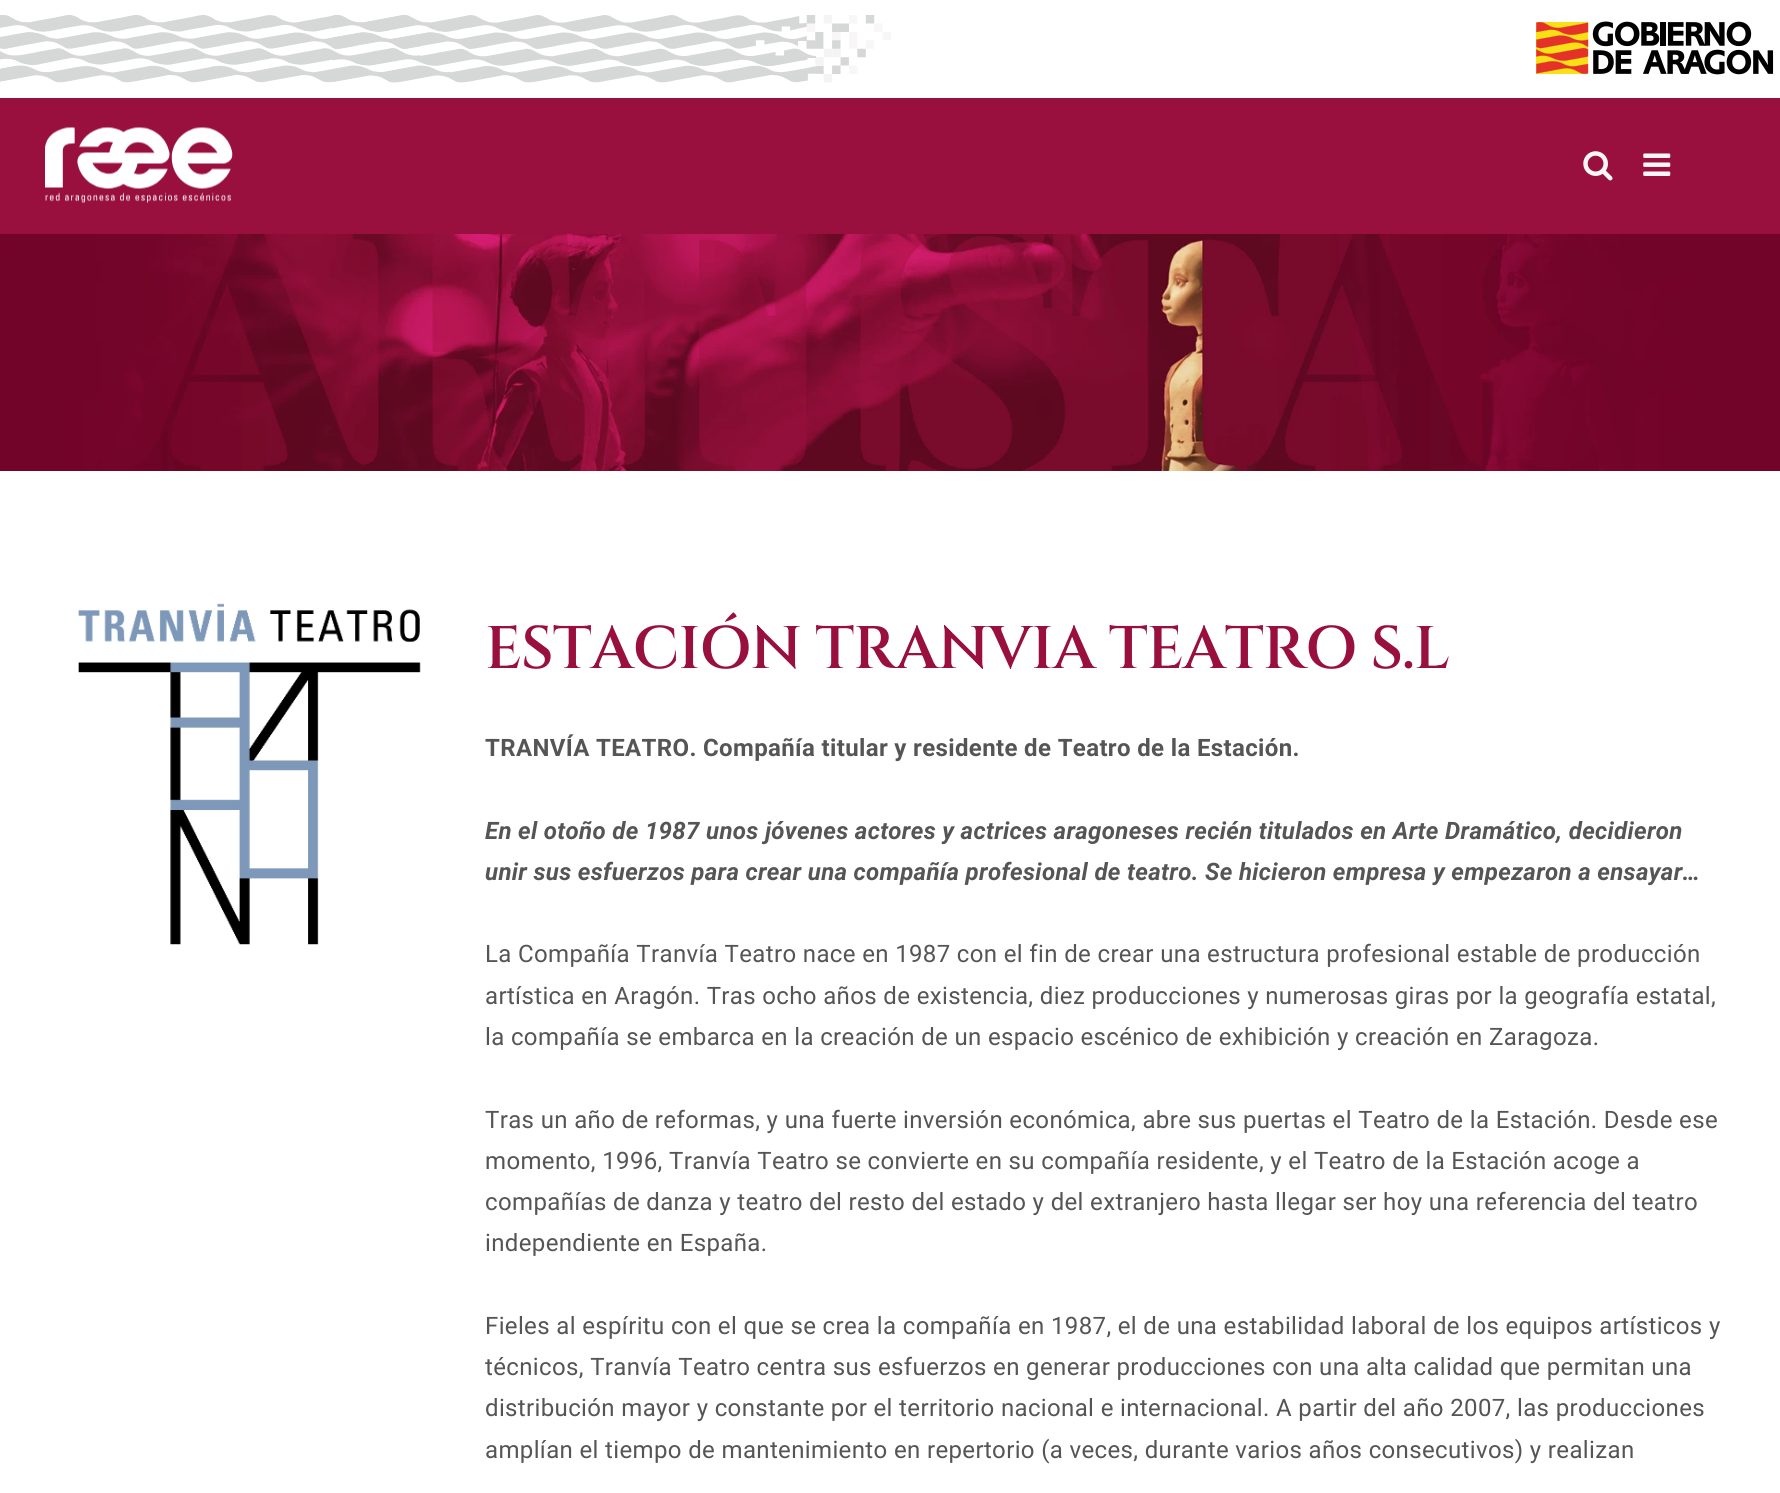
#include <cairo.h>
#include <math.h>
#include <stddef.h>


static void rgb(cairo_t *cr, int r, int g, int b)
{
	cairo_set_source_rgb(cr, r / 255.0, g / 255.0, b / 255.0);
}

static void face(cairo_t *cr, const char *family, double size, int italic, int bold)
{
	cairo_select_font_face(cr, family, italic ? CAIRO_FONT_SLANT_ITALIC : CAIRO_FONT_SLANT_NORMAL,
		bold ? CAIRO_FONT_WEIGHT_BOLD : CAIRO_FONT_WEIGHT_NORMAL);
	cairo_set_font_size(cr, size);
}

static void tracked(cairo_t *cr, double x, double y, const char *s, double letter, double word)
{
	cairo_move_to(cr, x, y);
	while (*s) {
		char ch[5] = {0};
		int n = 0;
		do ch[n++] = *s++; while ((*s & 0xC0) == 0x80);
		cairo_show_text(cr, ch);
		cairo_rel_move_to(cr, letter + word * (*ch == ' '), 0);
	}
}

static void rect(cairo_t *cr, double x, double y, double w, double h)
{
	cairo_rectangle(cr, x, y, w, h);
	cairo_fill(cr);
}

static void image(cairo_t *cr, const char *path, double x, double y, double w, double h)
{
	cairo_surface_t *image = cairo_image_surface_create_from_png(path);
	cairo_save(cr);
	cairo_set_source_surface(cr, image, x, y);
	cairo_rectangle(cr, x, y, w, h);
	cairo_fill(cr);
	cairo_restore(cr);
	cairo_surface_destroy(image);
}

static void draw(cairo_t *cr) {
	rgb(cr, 255, 255, 255);
	cairo_paint(cr);
	image(cr, "image0.png", 0, 15, 891, 68);
	image(cr, "image1.png", 1536, 21, 238, 54);
	rgb(cr, 153, 16, 63);
	rect(cr, 0, 98, 1780, 136);
	image(cr, "image2.png", 45, 127, 188, 76);
	image(cr, "image3.png", 1583, 151, 30, 30);
	image(cr, "image4.png", 1643, 153, 28, 23);
	image(cr, "image5.png", 0, 234, 1780, 237);
	image(cr, "image6.png", 78, 603, 343, 342);
	face(cr, "Cinzel SemiBold", 60, 0, 0);
	tracked(cr, 485, 668, "ESTACIÓN TRANVIA TEATRO S.L", -0.9, 0);
	face(cr, "Roboto", 24, 0, 1);
	rgb(cr, 85, 85, 85);
	tracked(cr, 485, 756, "TRANVÍA TEATRO. Compañía titular y residente de Teatro de la Estación.", 0.36, 0);
	face(cr, "Roboto", 24, 1, 1);
	tracked(cr, 485, 839, "En el otoño de 1987 unos jóvenes actores y actrices aragoneses recién titulados en Arte Dramático, decidieron", 0.36, 0);
	tracked(cr, 485, 880, "unir sus esfuerzos para crear una compañía profesional de teatro. Se hicieron empresa y empezaron a ensayar…", 0.36, 0);
	face(cr, "Roboto", 24, 0, 0);
	tracked(cr, 485, 962, "La Compañía Tranvía Teatro nace en 1987 con el fin de crear una estructura profesional estable de producción", 0.36, 0);
	tracked(cr, 485, 1004, "artística en Aragón. Tras ocho años de existencia, diez producciones y numerosas giras por la geografía estatal,", 0.36, 0);
	tracked(cr, 485, 1045, "la compañía se embarca en la creación de un espacio escénico de exhibición y creación en Zaragoza.", 0.36, 0);
	tracked(cr, 485, 1128, "Tras un año de reformas, y una fuerte inversión económica, abre sus puertas el Teatro de la Estación. Desde ese", 0.36, 0);
	tracked(cr, 485, 1169, "momento, 1996, Tranvía Teatro se convierte en su compañía residente, y el Teatro de la Estación acoge a", 0.36, 0);
	tracked(cr, 485, 1210, "compañías de danza y teatro del resto del estado y del extranjero hasta llegar ser hoy una referencia del teatro", 0.36, 0);
	tracked(cr, 485, 1251, "independiente en España.", 0.36, 0);
	tracked(cr, 485, 1334, "Fieles al espíritu con el que se crea la compañía en 1987, el de una estabilidad laboral de los equipos artísticos y", 0.36, 0);
	tracked(cr, 485, 1375, "técnicos, Tranvía Teatro centra sus esfuerzos en generar producciones con una alta calidad que permitan una", 0.36, 0);
	tracked(cr, 485, 1416, "distribución mayor y constante por el territorio nacional e internacional. A partir del año 2007, las producciones", 0.36, 0);
	tracked(cr, 485, 1458, "amplían el tiempo de mantenimiento en repertorio (a veces, durante varios años consecutivos) y realizan", 0.36, 0);
}

int main(void) {
	cairo_surface_t *surface = cairo_image_surface_create(CAIRO_FORMAT_RGB24, 1780, 1493);
	cairo_t *cr = cairo_create(surface);
	cairo_font_options_t *options = cairo_font_options_create();
	cairo_font_options_set_hint_metrics(options, CAIRO_HINT_METRICS_OFF);
	cairo_font_options_set_hint_style(options, CAIRO_HINT_STYLE_NONE);
	cairo_set_font_options(cr, options);
	cairo_set_miter_limit(cr, 4);
	draw(cr);
	cairo_surface_write_to_png(surface, "render.png");
	cairo_font_options_destroy(options);
	cairo_destroy(cr);
	cairo_surface_destroy(surface);
	return 0;
}
